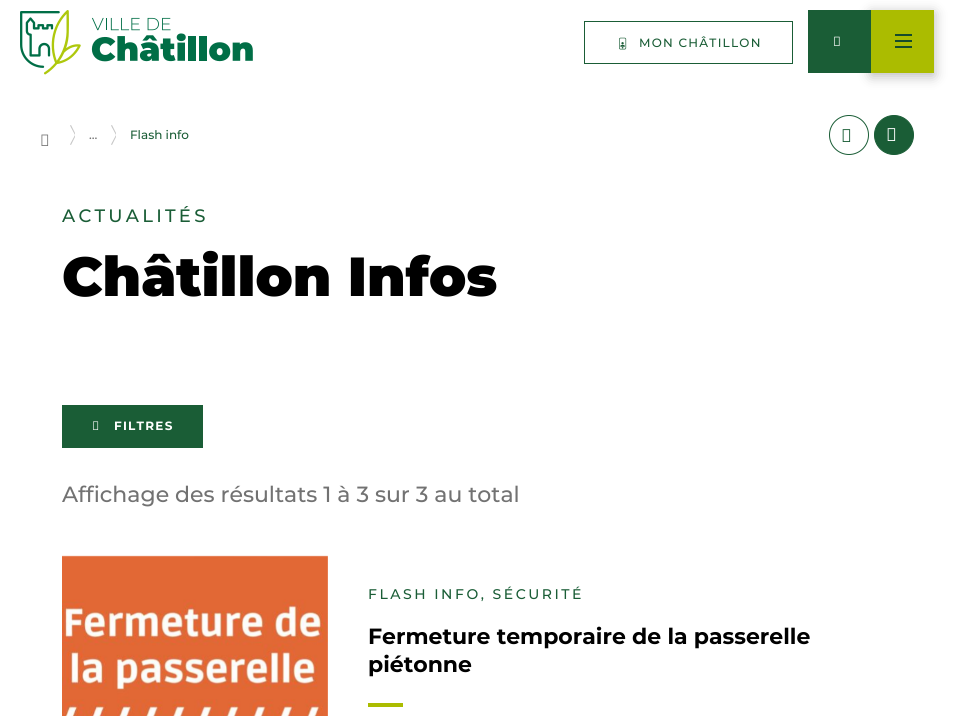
#include <cairo.h>
#include <math.h>
#include <stddef.h>


static void rgb(cairo_t *cr, int r, int g, int b)
{
	cairo_set_source_rgb(cr, r / 255.0, g / 255.0, b / 255.0);
}

static void face(cairo_t *cr, const char *family, double size, int italic, int bold)
{
	cairo_select_font_face(cr, family, italic ? CAIRO_FONT_SLANT_ITALIC : CAIRO_FONT_SLANT_NORMAL,
		bold ? CAIRO_FONT_WEIGHT_BOLD : CAIRO_FONT_WEIGHT_NORMAL);
	cairo_set_font_size(cr, size);
}

static void label(cairo_t *cr, double x, double y, const char *s)
{
	cairo_move_to(cr, x, y);
	cairo_show_text(cr, s);
}

static void tracked(cairo_t *cr, double x, double y, const char *s, double letter, double word)
{
	cairo_move_to(cr, x, y);
	while (*s) {
		char ch[5] = {0};
		int n = 0;
		do ch[n++] = *s++; while ((*s & 0xC0) == 0x80);
		cairo_show_text(cr, ch);
		cairo_rel_move_to(cr, letter + word * (*ch == ' '), 0);
	}
}

static void rect(cairo_t *cr, double x, double y, double w, double h)
{
	cairo_rectangle(cr, x, y, w, h);
	cairo_fill(cr);
}

static void rrect(cairo_t *cr, double x, double y, double w, double h, double r)
{
	cairo_new_sub_path(cr);
	cairo_arc(cr, x + w - r, y + h - r, r, 0, M_PI / 2);
	cairo_arc(cr, x + r, y + h - r, r, M_PI / 2, M_PI);
	cairo_arc(cr, x + r, y + r, r, M_PI, 1.5 * M_PI);
	cairo_arc(cr, x + w - r, y + r, r, 1.5 * M_PI, 2 * M_PI);
	cairo_close_path(cr);
}

static void soft_shadow(cairo_t *cr, double x, double y, double w, double h, double r, double blur, double alpha)
{
	cairo_push_group_with_content(cr, CAIRO_CONTENT_ALPHA);
	cairo_set_operator(cr, CAIRO_OPERATOR_SOURCE);
	for (int i = 15; i >= -15 && fmin(w, h) + blur * i / 3 > 0; i -= 2) {
		double e = blur * i / 6;
		cairo_set_source_rgba(cr, 0, 0, 0, alpha * erfc((i - 1) / 8.5) / 2);
		rrect(cr, x - e, y - e, w + 2 * e, h + 2 * e, fmax(0, fmin(r + e + blur * .6, fmin(w, h) / 2 + e)));
		cairo_fill(cr);
	}
	cairo_pattern_t *soft = cairo_pop_group(cr);
	cairo_mask(cr, soft);
	cairo_pattern_destroy(soft);
}

static void image(cairo_t *cr, const char *path, double x, double y, double w, double h)
{
	cairo_surface_t *image = cairo_image_surface_create_from_png(path);
	cairo_save(cr);
	cairo_set_source_surface(cr, image, x, y);
	cairo_rectangle(cr, x, y, w, h);
	cairo_fill(cr);
	cairo_restore(cr);
	cairo_surface_destroy(image);
}

static void draw(cairo_t *cr) {
	rgb(cr, 255, 255, 255);
	cairo_paint(cr);
	image(cr, "image0.png", 20, 10, 233, 65);
	cairo_rectangle(cr, 584.5, 21.5, 208, 42);
	rgb(cr, 26, 93, 54);
	cairo_set_line_width(cr, 1);
	cairo_stroke(cr);
	image(cr, "image1.png", 619, 37, 8, 13);
	face(cr, "Montserrat Medium", 12, 0, 0);
	tracked(cr, 639, 47, "MON CHÂTILLON", 1.25, 0);
	rgb(cr, 0, 0, 0);
	soft_shadow(cr, 871, 13, 63, 63, 0, 6.5, 0.28);
	rgb(cr, 26, 93, 54);
	rect(cr, 808, 10, 63, 63);
	image(cr, "image2.png", 834, 36, 6, 10);
	rgb(cr, 171, 188, 0);
	rect(cr, 871, 10, 63, 63);
	rgb(cr, 21, 75, 44);
	rect(cr, 895, 34, 17, 2);
	rect(cr, 895, 40, 17, 2);
	rect(cr, 895, 46, 17, 2);
	image(cr, "image3.png", 41, 134, 8, 12);
	cairo_save(cr);
	cairo_rectangle(cr, 70, 125, 5, 20);
	cairo_clip(cr);
	rgb(cr, 197, 197, 197);
	cairo_new_path(cr);
	cairo_move_to(cr, 71, 145);
	cairo_line_to(cr, 70, 144.5);
	cairo_line_to(cr, 75, 135);
	cairo_line_to(cr, 70, 125.5);
	cairo_line_to(cr, 71, 125);
	cairo_line_to(cr, 76, 135);
	cairo_close_path(cr);
	cairo_fill(cr);
	cairo_restore(cr);
	rgb(cr, 114, 114, 114);
	label(cr, 89, 139, "…");
	cairo_save(cr);
	cairo_rectangle(cr, 111, 125, 5, 20);
	cairo_clip(cr);
	rgb(cr, 197, 197, 197);
	cairo_new_path(cr);
	cairo_move_to(cr, 112, 145);
	cairo_line_to(cr, 111, 144.5);
	cairo_line_to(cr, 116, 135);
	cairo_line_to(cr, 111, 125.5);
	cairo_line_to(cr, 112, 125);
	cairo_line_to(cr, 117, 135);
	cairo_close_path(cr);
	cairo_fill(cr);
	cairo_restore(cr);
	rgb(cr, 26, 93, 54);
	label(cr, 130, 139, "Flash info");
	cairo_new_path(cr);
	cairo_arc(cr, 849, 135, 19.5, 0, 2 * M_PI);
	cairo_stroke(cr);
	image(cr, "image4.png", 842, 129, 9, 13);
	cairo_arc(cr, 894, 135, 19.5, 0, 2 * M_PI);
	cairo_fill_preserve(cr);
	cairo_stroke(cr);
	image(cr, "image5.png", 887, 128, 9, 13);
	face(cr, "Montserrat Medium", 18, 0, 0);
	tracked(cr, 62, 222, "ACTUALITÉS", 3.25, 0);
	face(cr, "Montserrat Black", 55, 0, 0);
	rgb(cr, 0, 0, 0);
	label(cr, 62, 296, "Châtillon Infos");
	rgb(cr, 26, 93, 54);
	rect(cr, 62, 405, 141, 43);
	image(cr, "image6.png", 93, 421, 6, 9);
	face(cr, "Montserrat", 12, 0, 1);
	rgb(cr, 255, 255, 255);
	tracked(cr, 114, 430, "FILTRES", 1.25, 0);
	face(cr, "Montserrat Medium", 22, 0, 0);
	rgb(cr, 114, 114, 114);
	label(cr, 62, 502, "Affichage des résultats 1 à 3 sur 3 au total");
	image(cr, "image7.png", 62, 555, 266, 161);
	face(cr, "Montserrat Medium", 14, 0, 0);
	rgb(cr, 26, 93, 54);
	tracked(cr, 368, 599, "FLASH INFO, SÉCURITÉ", 2.5, 0);
	face(cr, "Montserrat", 22, 0, 1);
	rgb(cr, 0, 0, 0);
	label(cr, 368, 644, "Fermeture temporaire de la passerelle");
	label(cr, 368, 672, "piétonne");
	rgb(cr, 171, 188, 0);
	rect(cr, 368, 703, 35, 4);
}

int main(void) {
	cairo_surface_t *surface = cairo_image_surface_create(CAIRO_FORMAT_RGB24, 954, 716);
	cairo_t *cr = cairo_create(surface);
	cairo_font_options_t *options = cairo_font_options_create();
	cairo_font_options_set_hint_metrics(options, CAIRO_HINT_METRICS_OFF);
	cairo_font_options_set_hint_style(options, CAIRO_HINT_STYLE_NONE);
	cairo_set_font_options(cr, options);
	cairo_set_miter_limit(cr, 4);
	draw(cr);
	cairo_surface_write_to_png(surface, "render.png");
	cairo_font_options_destroy(options);
	cairo_destroy(cr);
	cairo_surface_destroy(surface);
	return 0;
}
